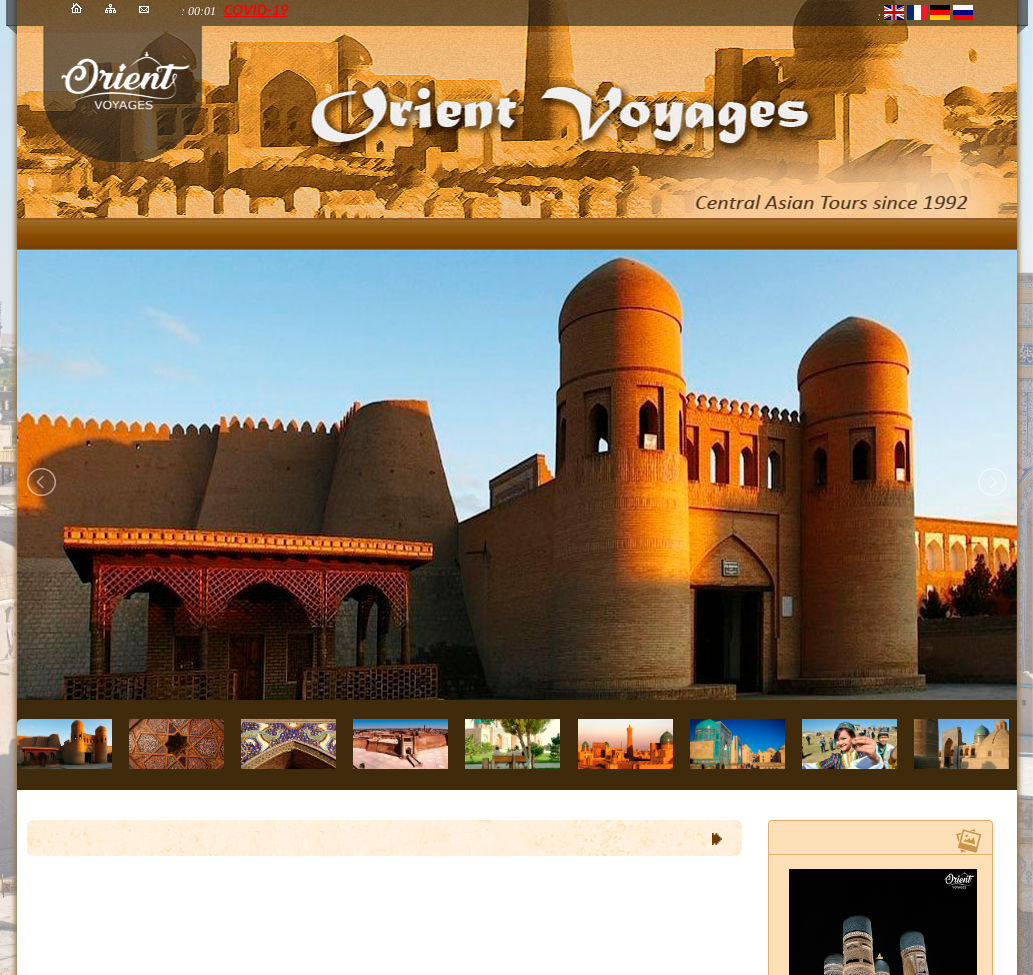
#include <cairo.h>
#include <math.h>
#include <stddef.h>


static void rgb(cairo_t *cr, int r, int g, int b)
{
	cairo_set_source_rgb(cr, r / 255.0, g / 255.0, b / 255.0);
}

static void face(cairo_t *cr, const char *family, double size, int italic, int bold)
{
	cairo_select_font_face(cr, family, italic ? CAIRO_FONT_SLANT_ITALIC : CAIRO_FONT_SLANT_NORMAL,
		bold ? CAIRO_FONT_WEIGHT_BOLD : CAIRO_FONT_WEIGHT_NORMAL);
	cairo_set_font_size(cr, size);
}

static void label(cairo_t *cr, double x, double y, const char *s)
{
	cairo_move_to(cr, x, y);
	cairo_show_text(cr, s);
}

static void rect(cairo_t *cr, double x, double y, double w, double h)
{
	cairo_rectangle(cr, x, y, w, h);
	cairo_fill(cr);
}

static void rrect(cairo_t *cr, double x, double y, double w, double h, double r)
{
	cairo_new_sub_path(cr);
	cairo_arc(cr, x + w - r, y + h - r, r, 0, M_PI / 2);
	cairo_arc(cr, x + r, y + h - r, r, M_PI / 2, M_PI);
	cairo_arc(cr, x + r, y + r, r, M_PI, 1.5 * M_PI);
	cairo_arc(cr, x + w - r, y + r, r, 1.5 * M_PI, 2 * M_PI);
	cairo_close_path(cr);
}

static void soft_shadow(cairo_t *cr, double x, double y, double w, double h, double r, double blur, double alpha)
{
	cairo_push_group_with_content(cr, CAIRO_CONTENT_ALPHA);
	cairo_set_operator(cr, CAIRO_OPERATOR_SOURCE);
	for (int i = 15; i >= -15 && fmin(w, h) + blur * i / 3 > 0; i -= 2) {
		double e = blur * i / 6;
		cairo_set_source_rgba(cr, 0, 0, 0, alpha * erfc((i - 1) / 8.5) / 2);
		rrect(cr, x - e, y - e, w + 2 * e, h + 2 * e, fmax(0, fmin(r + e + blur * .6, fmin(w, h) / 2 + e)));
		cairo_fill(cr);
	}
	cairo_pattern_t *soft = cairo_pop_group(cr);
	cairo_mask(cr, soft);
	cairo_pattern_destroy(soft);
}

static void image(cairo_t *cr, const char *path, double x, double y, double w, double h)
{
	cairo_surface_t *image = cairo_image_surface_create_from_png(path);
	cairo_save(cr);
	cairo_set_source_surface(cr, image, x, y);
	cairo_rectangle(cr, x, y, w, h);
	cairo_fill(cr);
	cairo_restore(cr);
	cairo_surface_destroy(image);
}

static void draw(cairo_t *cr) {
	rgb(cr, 255, 255, 255);
	cairo_paint(cr);
	image(cr, "image0.png", 0, 0, 1033, 975);
	rgb(cr, 148, 112, 69);
	soft_shadow(cr, 15, -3, 1004, 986, 0, 2.5, 1);
	image(cr, "image1.png", 17, 0, 1000, 220);
	image(cr, "image2.png", 6, 0, 1022, 162);
	image(cr, "image3.png", 71, 3, 11, 10);
	image(cr, "image4.png", 105, 3, 11, 10);
	image(cr, "image5.png", 139, 5, 11, 8);
	face(cr, "Liberation Serif", 12, 1, 0);
	rgb(cr, 255, 255, 255);
	label(cr, 181, 15, ": 00:01");
	face(cr, "Carlito", 16, 1, 1);
	rgb(cr, 255, 0, 0);
	label(cr, 224, 15, "COVID-19");
	rect(cr, 224, 16, 63, 1);
	image(cr, "image6.png", 884, 5, 20, 15);
	rgb(cr, 0, 38, 127);
	rect(cr, 907, 5, 7, 15);
	rgb(cr, 255, 255, 255);
	rect(cr, 914, 5, 7, 15);
	rgb(cr, 243, 24, 48);
	rect(cr, 921, 5, 6, 15);
	rgb(cr, 0, 0, 0);
	rect(cr, 930, 5, 20, 5);
	rgb(cr, 255, 255, 255);
	rect(cr, 953, 5, 20, 5);
	rgb(cr, 255, 0, 0);
	rect(cr, 930, 10, 20, 5);
	rgb(cr, 1, 1, 126);
	rect(cr, 953, 10, 20, 5);
	face(cr, "Liberation Serif", 12, 1, 0);
	rgb(cr, 255, 255, 255);
	label(cr, 877, 20, ":");
	rgb(cr, 255, 204, 0);
	rect(cr, 930, 15, 20, 5);
	rgb(cr, 254, 1, 1);
	rect(cr, 953, 15, 20, 5);
	image(cr, "image7.png", 6, 25, 11, 10);
	image(cr, "image8.png", 1017, 25, 11, 10);
	image(cr, "image9.png", 17, 220, 1000, 30);
	rgb(cr, 64, 42, 12);
	rect(cr, 17, 700, 1000, 90);
	image(cr, "image10.png", 17, 250, 1000, 450);
	image(cr, "image11.png", 27, 468, 29, 28);
	image(cr, "image12.png", 978, 468, 29, 28);
	image(cr, "image13.png", 17, 719, 95, 50);
	image(cr, "image14.png", 129, 719, 95, 50);
	image(cr, "image15.png", 241, 719, 95, 50);
	image(cr, "image16.png", 353, 719, 95, 50);
	image(cr, "image17.png", 465, 719, 95, 50);
	image(cr, "image18.png", 578, 719, 95, 50);
	image(cr, "image19.png", 690, 719, 95, 50);
	image(cr, "image20.png", 802, 719, 95, 50);
	image(cr, "image21.png", 914, 719, 95, 50);
	rgb(cr, 255, 255, 255);
	rect(cr, 17, 790, 1000, 185);
	image(cr, "image22.png", 27, 820, 715, 36);
	image(cr, "image23.png", 712, 833, 10, 12);
	rgb(cr, 254, 224, 184);
	rrect(cr, 768.5, 820.5, 224, 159, 3.5);
	cairo_fill_preserve(cr);
	rgb(cr, 228, 174, 105);
	cairo_set_line_width(cr, 1);
	cairo_stroke(cr);
	rect(cr, 769, 854, 223, 1);
	image(cr, "image24.png", 956, 829, 26, 24);
	image(cr, "image25.png", 789, 869, 188, 106);
}

int main(void) {
	cairo_surface_t *surface = cairo_image_surface_create(CAIRO_FORMAT_RGB24, 1033, 975);
	cairo_t *cr = cairo_create(surface);
	cairo_font_options_t *options = cairo_font_options_create();
	cairo_font_options_set_hint_metrics(options, CAIRO_HINT_METRICS_OFF);
	cairo_font_options_set_hint_style(options, CAIRO_HINT_STYLE_NONE);
	cairo_set_font_options(cr, options);
	cairo_set_miter_limit(cr, 4);
	draw(cr);
	cairo_surface_write_to_png(surface, "render.png");
	cairo_font_options_destroy(options);
	cairo_destroy(cr);
	cairo_surface_destroy(surface);
	return 0;
}
